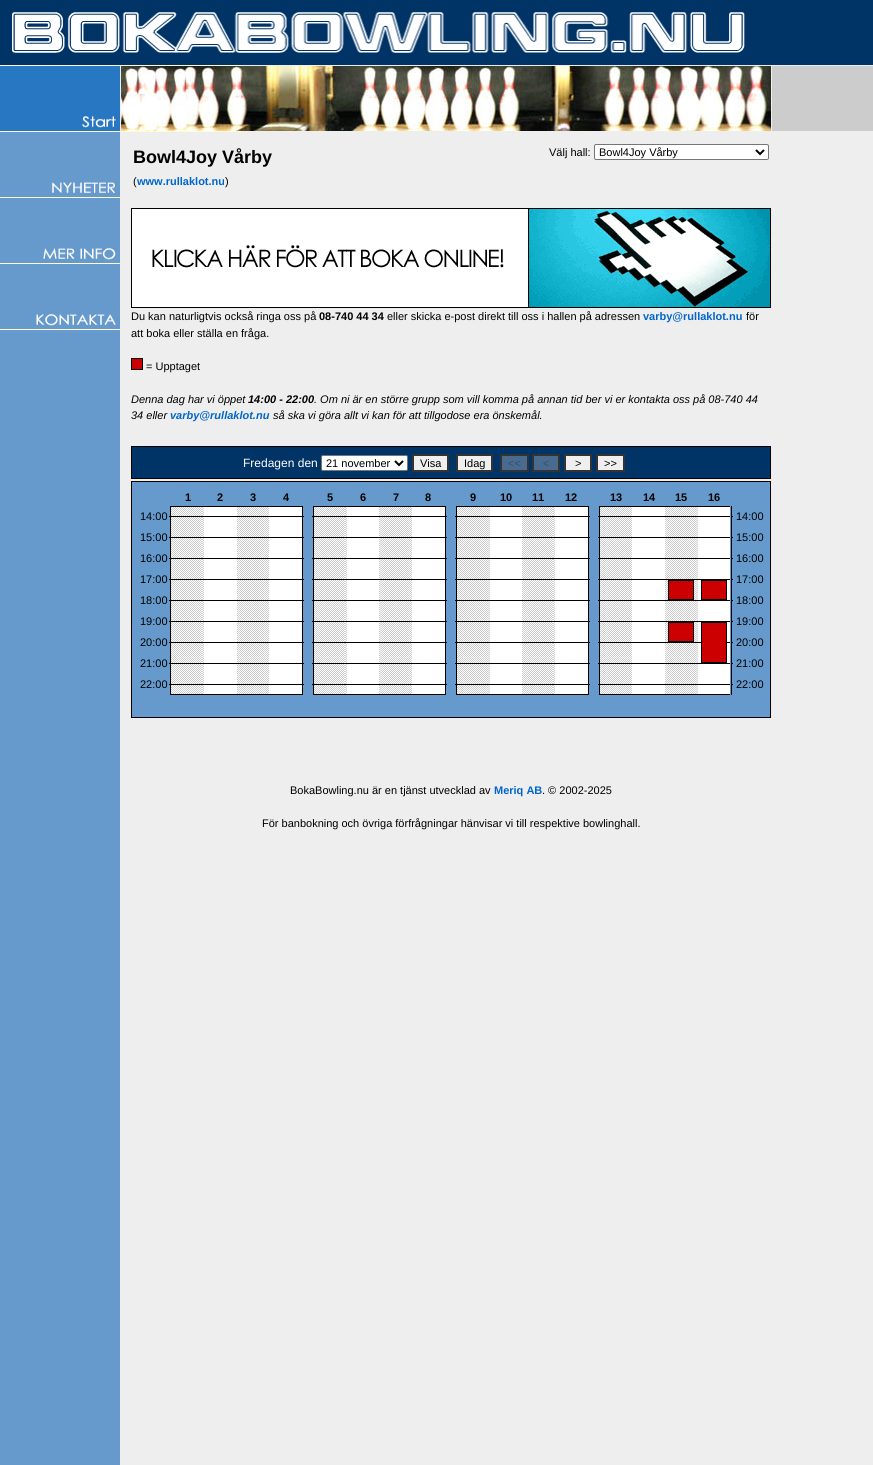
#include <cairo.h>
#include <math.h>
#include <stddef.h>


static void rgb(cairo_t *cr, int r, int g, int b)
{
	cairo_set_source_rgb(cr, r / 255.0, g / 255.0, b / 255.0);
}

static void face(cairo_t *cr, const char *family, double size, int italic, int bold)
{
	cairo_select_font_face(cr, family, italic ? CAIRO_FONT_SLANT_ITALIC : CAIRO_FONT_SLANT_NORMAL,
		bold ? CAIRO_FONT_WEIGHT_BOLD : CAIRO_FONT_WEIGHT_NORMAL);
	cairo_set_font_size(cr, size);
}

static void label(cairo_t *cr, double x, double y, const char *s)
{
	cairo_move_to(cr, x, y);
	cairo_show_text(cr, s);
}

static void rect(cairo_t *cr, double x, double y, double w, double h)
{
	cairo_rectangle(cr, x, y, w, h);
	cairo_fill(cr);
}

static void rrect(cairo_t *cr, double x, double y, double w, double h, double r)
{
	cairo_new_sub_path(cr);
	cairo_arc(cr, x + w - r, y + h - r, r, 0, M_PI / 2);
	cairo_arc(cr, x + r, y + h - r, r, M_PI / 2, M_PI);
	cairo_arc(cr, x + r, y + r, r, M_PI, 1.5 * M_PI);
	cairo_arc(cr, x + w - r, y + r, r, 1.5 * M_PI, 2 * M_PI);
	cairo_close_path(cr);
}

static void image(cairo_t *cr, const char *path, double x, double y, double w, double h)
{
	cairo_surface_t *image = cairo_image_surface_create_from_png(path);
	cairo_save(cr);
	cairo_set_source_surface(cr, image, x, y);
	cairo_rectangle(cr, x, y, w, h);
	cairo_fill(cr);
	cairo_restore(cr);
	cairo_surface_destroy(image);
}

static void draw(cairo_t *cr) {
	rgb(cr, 238, 238, 238);
	cairo_paint(cr);
	rgb(cr, 0, 51, 102);
	rect(cr, 0, 0, 873, 65);
	image(cr, "image0.png", 12, 12, 733, 41);
	rgb(cr, 102, 154, 204);
	rect(cr, 0, 132, 120, 1333);
	rgb(cr, 255, 251, 214);
	rect(cr, 0, 65, 120, 1);
	image(cr, "image1.png", 0, 66, 120, 65);
	rect(cr, 0, 131, 120, 1);
	image(cr, "image2.png", 52, 182, 64, 11);
	rect(cr, 0, 197, 120, 1);
	image(cr, "image3.png", 43, 248, 73, 12);
	rect(cr, 0, 263, 120, 1);
	image(cr, "image4.png", 36, 314, 80, 12);
	rect(cr, 0, 329, 120, 1);
	rect(cr, 121, 65, 120, 1);
	rgb(cr, 204, 204, 204);
	rect(cr, 772, 66, 101, 65);
	image(cr, "image5.png", 121, 66, 650, 65);
	rgb(cr, 255, 251, 214);
	rect(cr, 121, 131, 120, 1);
	face(cr, "Liberation Sans", 18, 0, 1);
	rgb(cr, 0, 0, 0);
	label(cr, 133, 163, "Bowl4Joy Vårby");
	face(cr, "Liberation Sans", 11, 0, 0);
	label(cr, 549, 156, "Välj hall:");
	rgb(cr, 255, 255, 255);
	rrect(cr, 594.5, 144.5, 174, 15, 1.5);
	cairo_fill_preserve(cr);
	rgb(cr, 118, 118, 118);
	cairo_set_line_width(cr, 1);
	cairo_stroke(cr);
	cairo_new_path(cr);
	cairo_move_to(cr, 756, 150);
	cairo_line_to(cr, 760, 154);
	cairo_line_to(cr, 764, 150);
	rgb(cr, 0, 0, 0);
	cairo_set_line_width(cr, 2);
	cairo_stroke(cr);
	label(cr, 599, 156, "Bowl4Joy Vårby");
	label(cr, 133, 185, "(");
	face(cr, "Liberation Sans", 11, 0, 1);
	rgb(cr, 0, 102, 204);
	label(cr, 137, 185, "www.rullaklot.nu");
	face(cr, "Liberation Sans", 11, 0, 0);
	rgb(cr, 0, 0, 0);
	label(cr, 225, 185, ")");
	image(cr, "image6.png", 131, 208, 640, 100);
	label(cr, 131, 320, "Du kan naturligtvis också ringa oss på");
	face(cr, "Liberation Sans", 11, 0, 1);
	label(cr, 319, 320, "08-740 44 34");
	face(cr, "Liberation Sans", 11, 0, 0);
	label(cr, 387, 320, "eller skicka e-post direkt till oss i hallen på adressen");
	face(cr, "Liberation Sans", 11, 0, 1);
	rgb(cr, 0, 102, 204);
	label(cr, 643, 320, "varby@rullaklot.nu");
	face(cr, "Liberation Sans", 11, 0, 0);
	rgb(cr, 0, 0, 0);
	label(cr, 746, 320, "för");
	label(cr, 131, 337, "att boka eller ställa en fråga.");
	cairo_rectangle(cr, 131.5, 358.5, 11, 11);
	cairo_set_line_width(cr, 1);
	cairo_stroke(cr);
	rgb(cr, 204, 0, 0);
	rect(cr, 132, 359, 10, 10);
	rgb(cr, 0, 0, 0);
	label(cr, 146, 370, "= Upptaget");
	face(cr, "Liberation Sans", 11, 1, 0);
	label(cr, 131, 403, "Denna dag har vi öppet");
	face(cr, "Liberation Sans", 11, 1, 1);
	label(cr, 248, 403, "14:00 - 22:00");
	face(cr, "Liberation Sans", 11, 1, 0);
	label(cr, 314, 403, ". Om ni är en större grupp som vill komma på annan tid ber vi er kontakta oss på 08-740 44");
	label(cr, 131, 419, "34 eller");
	face(cr, "Liberation Sans", 11, 1, 1);
	rgb(cr, 0, 102, 204);
	label(cr, 170, 419, "varby@rullaklot.nu");
	face(cr, "Liberation Sans", 11, 1, 0);
	rgb(cr, 0, 0, 0);
	label(cr, 273, 419, "så ska vi göra allt vi kan för att tillgodose era önskemål.");
	rect(cr, 131, 446, 640, 1);
	rect(cr, 131, 447, 1, 31);
	rgb(cr, 0, 51, 102);
	rect(cr, 132, 447, 638, 31);
	face(cr, "Liberation Sans", 12, 0, 0);
	rgb(cr, 255, 255, 255);
	label(cr, 243, 467, "Fredagen den");
	rrect(cr, 321.5, 455.5, 86, 15, 1.5);
	cairo_fill_preserve(cr);
	rgb(cr, 118, 118, 118);
	cairo_stroke(cr);
	cairo_new_path(cr);
	cairo_move_to(cr, 395, 461);
	cairo_line_to(cr, 399, 465);
	cairo_line_to(cr, 403, 461);
	rgb(cr, 0, 0, 0);
	cairo_set_line_width(cr, 2);
	cairo_stroke(cr);
	face(cr, "Liberation Sans", 11, 0, 0);
	label(cr, 326, 467, "21 november");
	rgb(cr, 239, 239, 239);
	cairo_rectangle(cr, 413, 455, 35, 16);
	cairo_fill_preserve(cr);
	rgb(cr, 51, 51, 51);
	cairo_stroke(cr);
	rgb(cr, 0, 0, 0);
	label(cr, 420, 467, "Visa");
	rgb(cr, 239, 239, 239);
	cairo_rectangle(cr, 457, 455, 35, 16);
	cairo_fill_preserve(cr);
	rgb(cr, 51, 51, 51);
	cairo_stroke(cr);
	rgb(cr, 0, 0, 0);
	label(cr, 464, 467, "Idag");
	rgb(cr, 72, 107, 143);
	cairo_rectangle(cr, 501, 455, 27, 16);
	cairo_fill_preserve(cr);
	rgb(cr, 51, 51, 51);
	cairo_stroke(cr);
	rgb(cr, 55, 80, 105);
	label(cr, 508, 467, "<<");
	rgb(cr, 72, 107, 143);
	cairo_rectangle(cr, 533, 455, 26, 16);
	cairo_fill_preserve(cr);
	rgb(cr, 51, 51, 51);
	cairo_stroke(cr);
	rgb(cr, 55, 80, 105);
	label(cr, 543, 467, "<");
	rgb(cr, 239, 239, 239);
	cairo_rectangle(cr, 565, 455, 26, 16);
	cairo_fill_preserve(cr);
	rgb(cr, 51, 51, 51);
	cairo_stroke(cr);
	rgb(cr, 0, 0, 0);
	label(cr, 575, 467, ">");
	rgb(cr, 239, 239, 239);
	cairo_rectangle(cr, 597, 455, 27, 16);
	cairo_fill_preserve(cr);
	rgb(cr, 51, 51, 51);
	cairo_stroke(cr);
	rgb(cr, 0, 0, 0);
	label(cr, 604, 467, ">>");
	rect(cr, 770, 447, 1, 31);
	rect(cr, 131, 478, 640, 1);
	rect(cr, 131, 481, 640, 1);
	rect(cr, 131, 482, 1, 235);
	rgb(cr, 102, 154, 204);
	rect(cr, 132, 482, 638, 235);
	face(cr, "Liberation Sans", 11, 0, 1);
	rgb(cr, 0, 0, 0);
	label(cr, 185, 501, "1");
	label(cr, 217, 501, "2");
	label(cr, 250, 501, "3");
	label(cr, 283, 501, "4");
	label(cr, 327, 501, "5");
	label(cr, 360, 501, "6");
	label(cr, 393, 501, "7");
	label(cr, 425, 501, "8");
	label(cr, 470, 501, "9");
	label(cr, 500, 501, "10");
	label(cr, 532, 501, "11");
	label(cr, 565, 501, "12");
	label(cr, 610, 501, "13");
	label(cr, 643, 501, "14");
	label(cr, 675, 501, "15");
	label(cr, 708, 501, "16");
	face(cr, "Liberation Sans", 11, 0, 0);
	label(cr, 140, 520, "14:00");
	image(cr, "image7.png", 169, 506, 2, 21);
	label(cr, 140, 541, "15:00");
	image(cr, "image7.png", 169, 527, 2, 21);
	label(cr, 140, 562, "16:00");
	image(cr, "image7.png", 169, 548, 2, 21);
	label(cr, 140, 583, "17:00");
	image(cr, "image7.png", 169, 569, 2, 21);
	label(cr, 140, 604, "18:00");
	image(cr, "image7.png", 169, 590, 2, 21);
	label(cr, 140, 625, "19:00");
	image(cr, "image7.png", 169, 611, 2, 21);
	label(cr, 140, 646, "20:00");
	image(cr, "image7.png", 169, 632, 2, 21);
	label(cr, 140, 667, "21:00");
	image(cr, "image7.png", 169, 653, 2, 21);
	label(cr, 140, 688, "22:00");
	image(cr, "image7.png", 169, 674, 2, 21);
	rect(cr, 171, 506, 131, 1);
	image(cr, "image8.png", 171, 507, 2, 187);
	image(cr, "image9.png", 173, 507, 29, 187);
	image(cr, "image8.png", 202, 507, 2, 187);
	rgb(cr, 255, 255, 255);
	rect(cr, 204, 507, 33, 187);
	image(cr, "image10.png", 204, 516, 2, 169);
	image(cr, "image8.png", 237, 507, 2, 187);
	image(cr, "image11.png", 239, 507, 28, 187);
	image(cr, "image8.png", 267, 507, 2, 187);
	rect(cr, 269, 507, 33, 187);
	image(cr, "image10.png", 269, 516, 2, 169);
	image(cr, "image12.png", 206, 516, 28, 169);
	image(cr, "image13.png", 234, 516, 3, 169);
	image(cr, "image14.png", 271, 516, 29, 169);
	image(cr, "image10.png", 300, 516, 2, 169);
	rgb(cr, 0, 0, 0);
	rect(cr, 171, 694, 131, 1);
	image(cr, "image15.png", 302, 506, 2, 21);
	image(cr, "image15.png", 302, 527, 2, 21);
	image(cr, "image15.png", 302, 548, 2, 21);
	image(cr, "image15.png", 302, 569, 2, 21);
	image(cr, "image15.png", 302, 590, 2, 21);
	image(cr, "image15.png", 302, 611, 2, 21);
	image(cr, "image15.png", 302, 632, 2, 21);
	image(cr, "image15.png", 302, 653, 2, 21);
	image(cr, "image15.png", 302, 674, 2, 21);
	image(cr, "image7.png", 312, 506, 2, 21);
	image(cr, "image7.png", 312, 527, 2, 21);
	image(cr, "image7.png", 312, 548, 2, 21);
	image(cr, "image7.png", 312, 569, 2, 21);
	image(cr, "image7.png", 312, 590, 2, 21);
	image(cr, "image7.png", 312, 611, 2, 21);
	image(cr, "image7.png", 312, 632, 2, 21);
	image(cr, "image7.png", 312, 653, 2, 21);
	image(cr, "image7.png", 312, 674, 2, 21);
	rect(cr, 314, 506, 131, 1);
	image(cr, "image8.png", 314, 507, 2, 187);
	image(cr, "image9.png", 316, 507, 29, 187);
	image(cr, "image8.png", 345, 507, 2, 187);
	rgb(cr, 255, 255, 255);
	rect(cr, 347, 507, 32, 187);
	image(cr, "image10.png", 347, 516, 2, 169);
	image(cr, "image16.png", 379, 507, 3, 187);
	image(cr, "image11.png", 382, 507, 28, 187);
	image(cr, "image8.png", 410, 507, 2, 187);
	rect(cr, 412, 507, 33, 187);
	image(cr, "image10.png", 412, 516, 2, 169);
	image(cr, "image12.png", 349, 516, 28, 169);
	image(cr, "image10.png", 377, 516, 2, 169);
	image(cr, "image14.png", 414, 516, 29, 169);
	image(cr, "image10.png", 443, 516, 2, 169);
	rgb(cr, 0, 0, 0);
	rect(cr, 314, 694, 131, 1);
	image(cr, "image15.png", 445, 506, 2, 21);
	image(cr, "image15.png", 445, 527, 2, 21);
	image(cr, "image15.png", 445, 548, 2, 21);
	image(cr, "image15.png", 445, 569, 2, 21);
	image(cr, "image15.png", 445, 590, 2, 21);
	image(cr, "image15.png", 445, 611, 2, 21);
	image(cr, "image15.png", 445, 632, 2, 21);
	image(cr, "image15.png", 445, 653, 2, 21);
	image(cr, "image15.png", 445, 674, 2, 21);
	image(cr, "image7.png", 455, 506, 2, 21);
	image(cr, "image7.png", 455, 527, 2, 21);
	image(cr, "image7.png", 455, 548, 2, 21);
	image(cr, "image7.png", 455, 569, 2, 21);
	image(cr, "image7.png", 455, 590, 2, 21);
	image(cr, "image7.png", 455, 611, 2, 21);
	image(cr, "image7.png", 455, 632, 2, 21);
	image(cr, "image7.png", 455, 653, 2, 21);
	image(cr, "image7.png", 455, 674, 2, 21);
	rect(cr, 457, 506, 131, 1);
	image(cr, "image8.png", 457, 507, 2, 187);
	image(cr, "image11.png", 459, 507, 28, 187);
	image(cr, "image16.png", 487, 507, 3, 187);
	rgb(cr, 255, 255, 255);
	rect(cr, 490, 507, 32, 187);
	image(cr, "image10.png", 490, 516, 2, 169);
	image(cr, "image8.png", 522, 507, 2, 187);
	image(cr, "image9.png", 524, 507, 29, 187);
	image(cr, "image8.png", 553, 507, 2, 187);
	rect(cr, 555, 507, 33, 187);
	image(cr, "image10.png", 555, 516, 2, 169);
	image(cr, "image12.png", 492, 516, 28, 169);
	image(cr, "image10.png", 520, 516, 2, 169);
	image(cr, "image12.png", 557, 516, 28, 169);
	image(cr, "image13.png", 585, 516, 3, 169);
	rgb(cr, 0, 0, 0);
	rect(cr, 457, 694, 131, 1);
	image(cr, "image15.png", 588, 506, 2, 21);
	image(cr, "image15.png", 588, 527, 2, 21);
	image(cr, "image15.png", 588, 548, 2, 21);
	image(cr, "image15.png", 588, 569, 2, 21);
	image(cr, "image15.png", 588, 590, 2, 21);
	image(cr, "image15.png", 588, 611, 2, 21);
	image(cr, "image15.png", 588, 632, 2, 21);
	image(cr, "image15.png", 588, 653, 2, 21);
	image(cr, "image15.png", 588, 674, 2, 21);
	image(cr, "image7.png", 598, 506, 2, 21);
	image(cr, "image7.png", 598, 527, 2, 21);
	image(cr, "image7.png", 598, 548, 2, 21);
	image(cr, "image7.png", 598, 569, 2, 21);
	image(cr, "image7.png", 598, 590, 2, 21);
	image(cr, "image7.png", 598, 611, 2, 21);
	image(cr, "image7.png", 598, 632, 2, 21);
	image(cr, "image7.png", 598, 653, 2, 21);
	image(cr, "image7.png", 598, 674, 2, 21);
	rect(cr, 600, 506, 130, 1);
	image(cr, "image8.png", 600, 507, 2, 187);
	image(cr, "image11.png", 602, 507, 28, 187);
	image(cr, "image8.png", 630, 507, 2, 187);
	rgb(cr, 255, 255, 255);
	rect(cr, 632, 507, 33, 187);
	image(cr, "image10.png", 632, 516, 2, 169);
	image(cr, "image8.png", 665, 507, 2, 187);
	image(cr, "image11.png", 667, 507, 28, 187);
	cairo_rectangle(cr, 668.5, 580.5, 25, 19);
	rgb(cr, 0, 0, 0);
	cairo_set_line_width(cr, 1);
	cairo_stroke(cr);
	rgb(cr, 204, 0, 0);
	rect(cr, 669, 581, 24, 18);
	cairo_rectangle(cr, 668.5, 622.5, 25, 19);
	rgb(cr, 0, 0, 0);
	cairo_stroke(cr);
	rgb(cr, 204, 0, 0);
	rect(cr, 669, 623, 24, 18);
	image(cr, "image16.png", 695, 507, 3, 187);
	rgb(cr, 255, 255, 255);
	rect(cr, 698, 507, 32, 187);
	image(cr, "image10.png", 698, 516, 2, 169);
	image(cr, "image14.png", 634, 516, 29, 169);
	image(cr, "image10.png", 663, 516, 2, 169);
	image(cr, "image12.png", 700, 516, 28, 169);
	cairo_rectangle(cr, 701.5, 580.5, 25, 19);
	rgb(cr, 0, 0, 0);
	cairo_stroke(cr);
	rgb(cr, 204, 0, 0);
	rect(cr, 702, 581, 24, 18);
	cairo_rectangle(cr, 701.5, 622.5, 25, 40);
	rgb(cr, 0, 0, 0);
	cairo_stroke(cr);
	rgb(cr, 204, 0, 0);
	rect(cr, 702, 623, 24, 39);
	image(cr, "image10.png", 728, 516, 2, 169);
	rgb(cr, 0, 0, 0);
	rect(cr, 600, 694, 130, 1);
	image(cr, "image15.png", 731, 506, 2, 21);
	label(cr, 736, 520, "14:00");
	image(cr, "image15.png", 731, 527, 2, 21);
	label(cr, 736, 541, "15:00");
	image(cr, "image15.png", 731, 548, 2, 21);
	label(cr, 736, 562, "16:00");
	image(cr, "image15.png", 731, 569, 2, 21);
	label(cr, 736, 583, "17:00");
	image(cr, "image15.png", 731, 590, 2, 21);
	label(cr, 736, 604, "18:00");
	image(cr, "image15.png", 731, 611, 2, 21);
	label(cr, 736, 625, "19:00");
	image(cr, "image15.png", 731, 632, 2, 21);
	label(cr, 736, 646, "20:00");
	image(cr, "image15.png", 731, 653, 2, 21);
	label(cr, 736, 667, "21:00");
	image(cr, "image15.png", 731, 674, 2, 21);
	label(cr, 736, 688, "22:00");
	rect(cr, 770, 482, 1, 235);
	rect(cr, 131, 717, 640, 1);
	label(cr, 290, 794, "BokaBowling.nu är en tjänst utvecklad av");
	face(cr, "Liberation Sans", 11, 0, 1);
	rgb(cr, 0, 102, 204);
	label(cr, 494, 794, "Meriq AB");
	face(cr, "Liberation Sans", 11, 0, 0);
	rgb(cr, 0, 0, 0);
	label(cr, 542, 794, ". © 2002-2025");
	label(cr, 262, 827, "För banbokning och övriga förfrågningar hänvisar vi till respektive bowlinghall.");
}

int main(void) {
	cairo_surface_t *surface = cairo_image_surface_create(CAIRO_FORMAT_RGB24, 873, 1465);
	cairo_t *cr = cairo_create(surface);
	cairo_font_options_t *options = cairo_font_options_create();
	cairo_font_options_set_hint_metrics(options, CAIRO_HINT_METRICS_OFF);
	cairo_font_options_set_hint_style(options, CAIRO_HINT_STYLE_NONE);
	cairo_set_font_options(cr, options);
	cairo_set_miter_limit(cr, 4);
	draw(cr);
	cairo_surface_write_to_png(surface, "render.png");
	cairo_font_options_destroy(options);
	cairo_destroy(cr);
	cairo_surface_destroy(surface);
	return 0;
}
